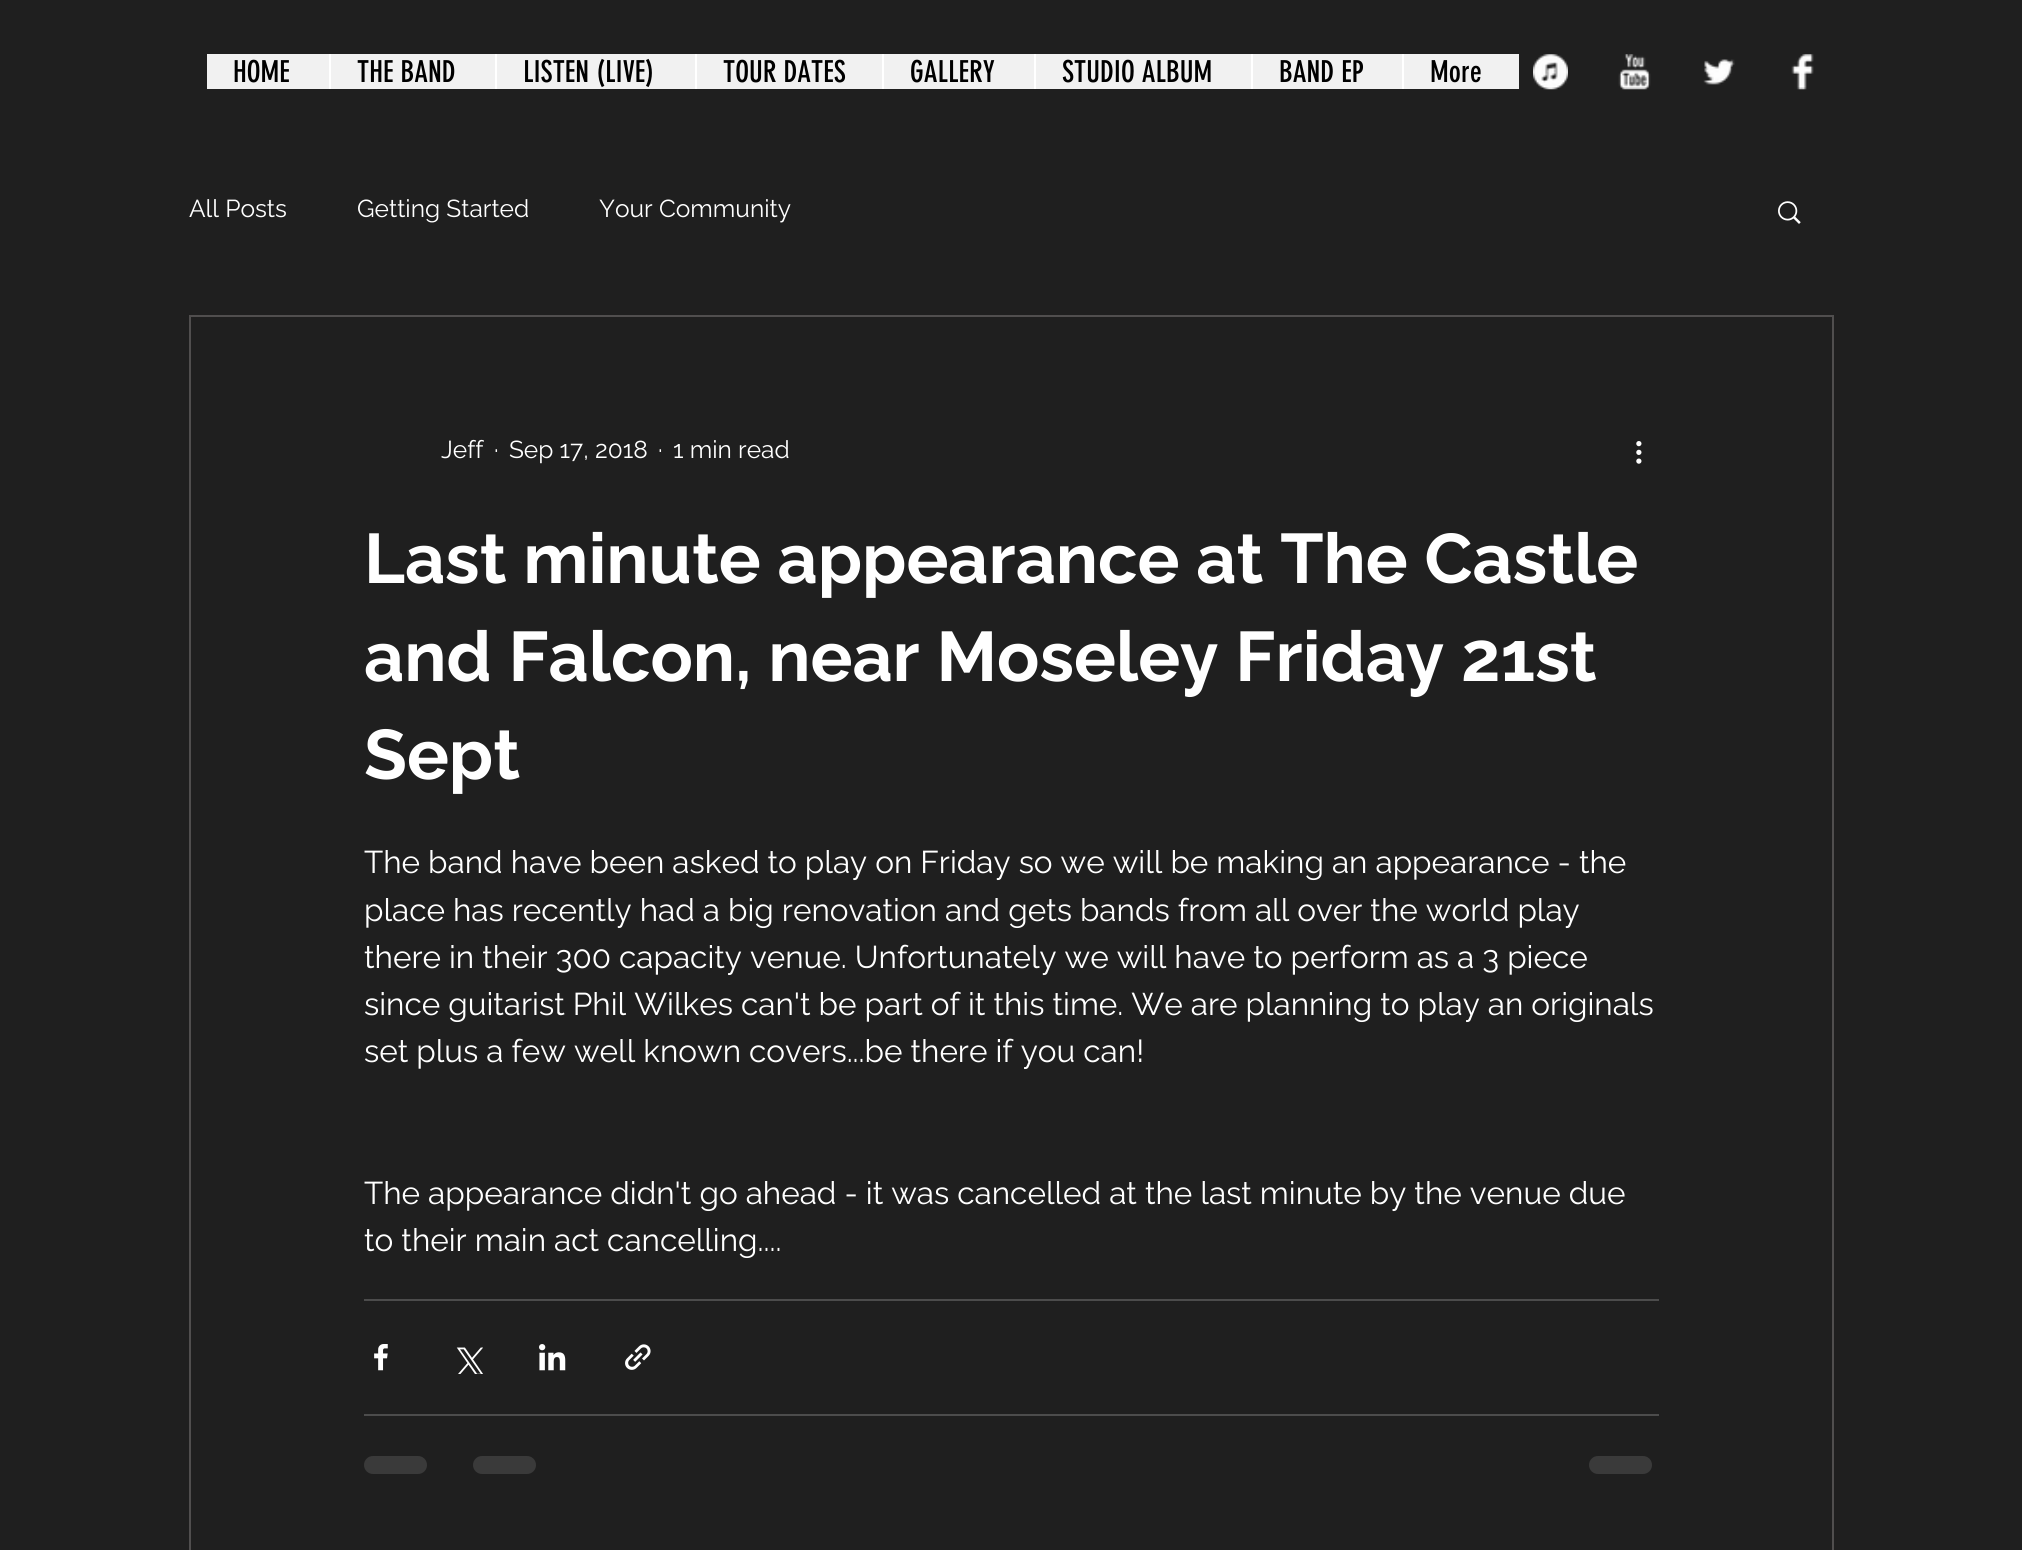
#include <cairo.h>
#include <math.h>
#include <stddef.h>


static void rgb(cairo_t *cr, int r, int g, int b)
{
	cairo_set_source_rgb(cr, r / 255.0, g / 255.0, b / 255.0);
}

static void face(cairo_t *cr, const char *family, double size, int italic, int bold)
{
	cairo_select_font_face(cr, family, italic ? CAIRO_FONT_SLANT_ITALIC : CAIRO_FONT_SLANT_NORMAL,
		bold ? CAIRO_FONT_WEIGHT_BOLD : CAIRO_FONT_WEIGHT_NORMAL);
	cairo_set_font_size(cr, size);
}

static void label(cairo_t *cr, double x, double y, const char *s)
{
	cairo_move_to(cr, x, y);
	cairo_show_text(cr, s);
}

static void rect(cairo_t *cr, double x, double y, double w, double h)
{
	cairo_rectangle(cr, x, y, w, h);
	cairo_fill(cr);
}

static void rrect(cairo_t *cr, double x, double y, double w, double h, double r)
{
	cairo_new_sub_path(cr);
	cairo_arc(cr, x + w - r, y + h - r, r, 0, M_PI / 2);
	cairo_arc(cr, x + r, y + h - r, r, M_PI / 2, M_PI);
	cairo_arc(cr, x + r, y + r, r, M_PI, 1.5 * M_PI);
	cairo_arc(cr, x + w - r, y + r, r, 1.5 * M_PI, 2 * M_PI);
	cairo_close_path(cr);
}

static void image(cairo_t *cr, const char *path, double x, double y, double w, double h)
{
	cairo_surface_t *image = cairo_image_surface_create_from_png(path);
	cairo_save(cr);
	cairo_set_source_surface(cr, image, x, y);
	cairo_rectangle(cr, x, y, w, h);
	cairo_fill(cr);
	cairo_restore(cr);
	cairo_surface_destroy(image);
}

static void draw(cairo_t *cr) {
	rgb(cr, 31, 31, 31);
	cairo_paint(cr);
	rgb(cr, 241, 241, 241);
	rect(cr, 207, 54, 1312, 35);
	face(cr, "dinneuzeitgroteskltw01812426", 29.75, 0, 0);
	rgb(cr, 0, 0, 0);
	label(cr, 233, 82, "HOME");
	rgb(cr, 255, 255, 255);
	rect(cr, 329, 54, 2, 35);
	rgb(cr, 0, 0, 0);
	label(cr, 357, 82, "THE BAND");
	rgb(cr, 255, 255, 255);
	rect(cr, 495, 54, 2, 35);
	rgb(cr, 0, 0, 0);
	label(cr, 523, 82, "LISTEN (LIVE)");
	rgb(cr, 255, 255, 255);
	rect(cr, 695, 54, 2, 35);
	rgb(cr, 0, 0, 0);
	label(cr, 723, 82, "TOUR DATES");
	rgb(cr, 255, 255, 255);
	rect(cr, 882, 54, 2, 35);
	rgb(cr, 0, 0, 0);
	label(cr, 910, 82, "GALLERY");
	rgb(cr, 255, 255, 255);
	rect(cr, 1034, 54, 2, 35);
	rgb(cr, 0, 0, 0);
	label(cr, 1062, 82, "STUDIO ALBUM");
	rgb(cr, 255, 255, 255);
	rect(cr, 1251, 54, 2, 35);
	rgb(cr, 0, 0, 0);
	label(cr, 1279, 82, "BAND EP");
	rgb(cr, 255, 255, 255);
	rect(cr, 1402, 54, 2, 35);
	rgb(cr, 0, 0, 0);
	label(cr, 1430, 82, "More");
	image(cr, "image0.png", 1533, 54, 35, 36);
	image(cr, "image1.png", 1618, 54, 33, 36);
	image(cr, "image2.png", 1703, 59, 32, 26);
	image(cr, "image3.png", 1791, 54, 23, 36);
	face(cr, "Raleway", 24.5, 0, 0);
	rgb(cr, 255, 255, 255);
	label(cr, 189, 217, "All Posts");
	label(cr, 357, 217, "Getting Started");
	label(cr, 599, 217, "Your Community");
	image(cr, "image4.png", 1778, 201, 23, 23);
	cairo_rectangle(cr, 190, 316, 1643, 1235);
	rgb(cr, 80, 78, 78);
	cairo_stroke(cr);
	rgb(cr, 255, 255, 255);
	label(cr, 441, 458, "Jeff");
	label(cr, 494, 458, "·");
	label(cr, 509, 458, "Sep 17, 2018");
	label(cr, 658, 458, "·");
	label(cr, 673, 458, "1 min read");
	image(cr, "image5.png", 1636, 441, 6, 23);
	face(cr, "Raleway", 70, 0, 1);
	label(cr, 364, 583, "Last minute appearance at The Castle");
	label(cr, 364, 681, "and Falcon, near Moseley Friday 21st");
	label(cr, 364, 779, "Sept");
	face(cr, "Raleway", 31.5, 0, 0);
	label(cr, 364, 873, "The band have been asked to play on Friday so we will be making an appearance - the");
	label(cr, 364, 921, "place has recently had a big renovation and gets bands from all over the world play");
	label(cr, 364, 968, "there in their 300 capacity venue. Unfortunately we will have to perform as a 3 piece");
	label(cr, 364, 1015, "since guitarist Phil Wilkes can't be part of it this time. We are planning to play an originals");
	label(cr, 364, 1062, "set plus a few well known covers...be there if you can!");
	label(cr, 364, 1204, "The appearance didn't go ahead - it was cancelled at the last minute by the venue due");
	label(cr, 364, 1251, "to their main act cancelling....");
	rgb(cr, 76, 76, 76);
	rect(cr, 364, 1299, 1295, 2);
	image(cr, "image6.png", 374, 1344, 14, 27);
	image(cr, "image7.png", 456, 1347, 27, 27);
	image(cr, "image8.png", 539, 1344, 27, 27);
	image(cr, "image9.png", 625, 1344, 26, 26);
	rect(cr, 364, 1414, 1295, 2);
	rgb(cr, 58, 58, 58);
	rrect(cr, 364, 1456, 63, 18, 9);
	cairo_fill(cr);
	rrect(cr, 473, 1456, 63, 18, 9);
	cairo_fill(cr);
	rrect(cr, 1589, 1456, 63, 18, 9);
	cairo_fill(cr);
}

int main(void) {
	cairo_surface_t *surface = cairo_image_surface_create(CAIRO_FORMAT_RGB24, 2022, 1550);
	cairo_t *cr = cairo_create(surface);
	cairo_font_options_t *options = cairo_font_options_create();
	cairo_font_options_set_hint_metrics(options, CAIRO_HINT_METRICS_OFF);
	cairo_font_options_set_hint_style(options, CAIRO_HINT_STYLE_NONE);
	cairo_set_font_options(cr, options);
	cairo_set_miter_limit(cr, 4);
	draw(cr);
	cairo_surface_write_to_png(surface, "render.png");
	cairo_font_options_destroy(options);
	cairo_destroy(cr);
	cairo_surface_destroy(surface);
	return 0;
}
